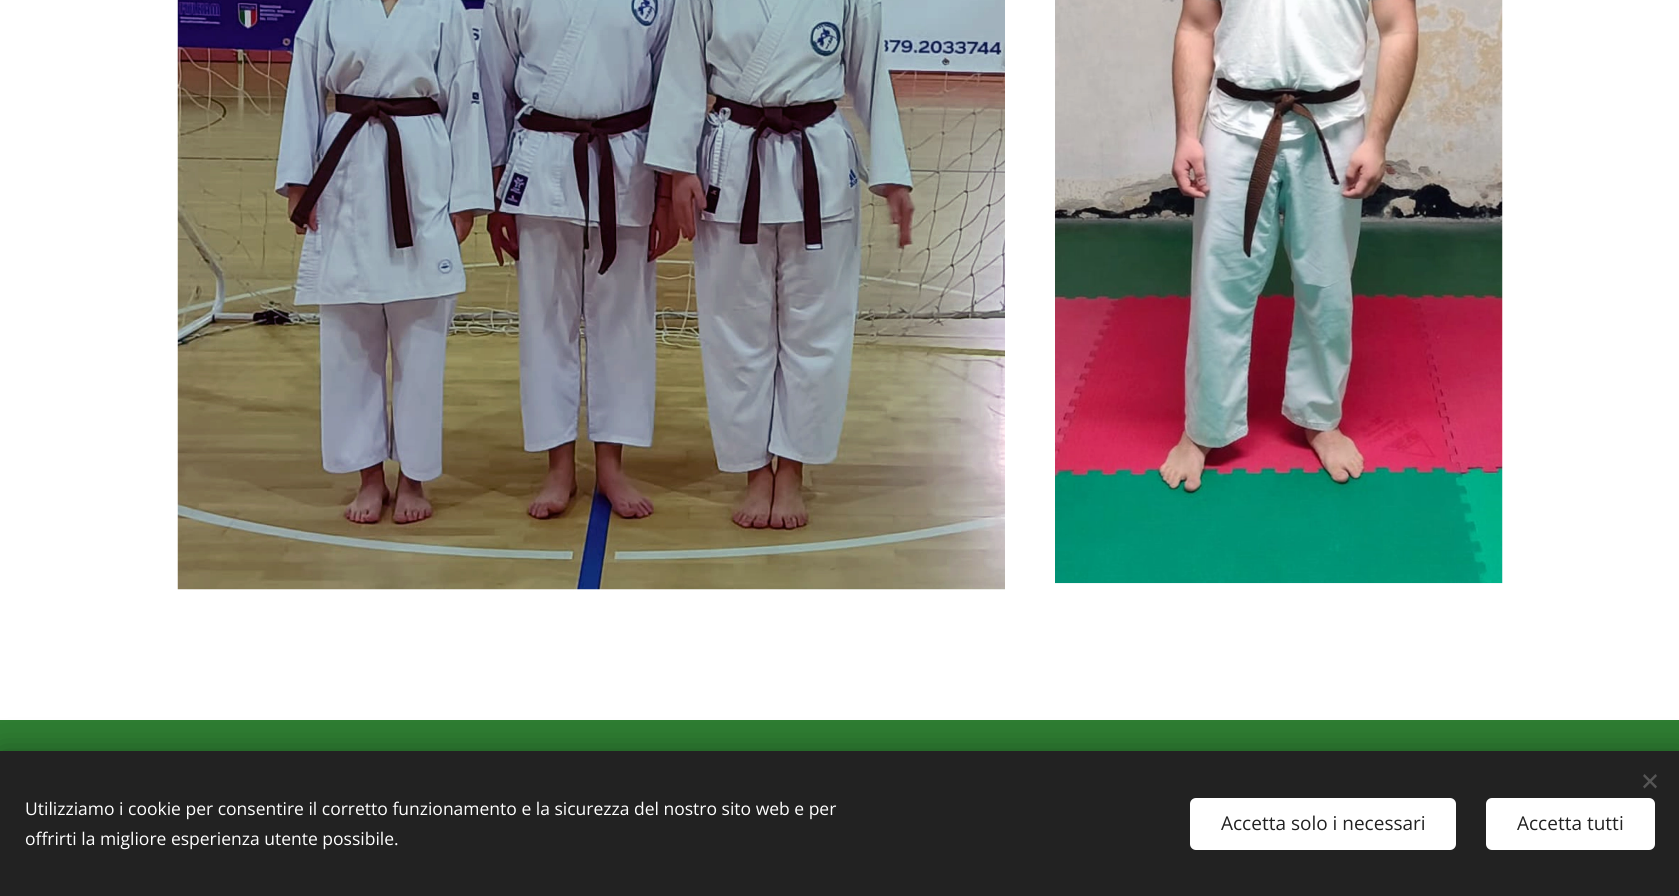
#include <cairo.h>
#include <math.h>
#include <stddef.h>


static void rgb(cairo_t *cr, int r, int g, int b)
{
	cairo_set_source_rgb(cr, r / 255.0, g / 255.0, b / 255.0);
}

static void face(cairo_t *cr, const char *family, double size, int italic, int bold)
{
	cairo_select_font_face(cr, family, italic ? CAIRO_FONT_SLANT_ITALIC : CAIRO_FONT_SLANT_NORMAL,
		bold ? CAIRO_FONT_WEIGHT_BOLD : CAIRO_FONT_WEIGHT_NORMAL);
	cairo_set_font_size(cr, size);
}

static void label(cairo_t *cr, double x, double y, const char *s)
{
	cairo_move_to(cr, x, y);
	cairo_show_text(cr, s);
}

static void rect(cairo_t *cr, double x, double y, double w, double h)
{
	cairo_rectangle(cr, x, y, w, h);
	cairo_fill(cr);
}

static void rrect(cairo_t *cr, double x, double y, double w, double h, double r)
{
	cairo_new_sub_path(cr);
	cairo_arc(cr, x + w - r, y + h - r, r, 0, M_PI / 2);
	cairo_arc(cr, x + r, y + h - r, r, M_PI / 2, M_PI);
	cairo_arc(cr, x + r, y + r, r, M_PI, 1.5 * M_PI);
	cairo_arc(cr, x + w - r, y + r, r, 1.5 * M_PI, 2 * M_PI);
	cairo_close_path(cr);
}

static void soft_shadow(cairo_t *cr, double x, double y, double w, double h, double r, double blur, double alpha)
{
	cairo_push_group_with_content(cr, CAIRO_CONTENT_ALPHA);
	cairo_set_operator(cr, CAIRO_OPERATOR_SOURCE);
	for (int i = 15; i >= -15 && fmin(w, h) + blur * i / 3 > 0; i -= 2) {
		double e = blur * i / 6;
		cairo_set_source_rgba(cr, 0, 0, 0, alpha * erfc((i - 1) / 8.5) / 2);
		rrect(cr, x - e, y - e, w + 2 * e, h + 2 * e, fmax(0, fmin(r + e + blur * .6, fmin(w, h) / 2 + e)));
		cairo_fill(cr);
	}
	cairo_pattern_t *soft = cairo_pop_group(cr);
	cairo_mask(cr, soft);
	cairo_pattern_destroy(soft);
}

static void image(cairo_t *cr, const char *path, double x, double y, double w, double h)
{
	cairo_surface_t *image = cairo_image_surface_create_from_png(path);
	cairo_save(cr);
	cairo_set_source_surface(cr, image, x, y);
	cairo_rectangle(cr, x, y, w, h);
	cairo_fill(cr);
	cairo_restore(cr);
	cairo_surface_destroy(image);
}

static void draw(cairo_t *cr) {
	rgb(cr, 255, 255, 255);
	cairo_paint(cr);
	image(cr, "image0.png", 177, 0, 828, 590);
	image(cr, "image1.png", 1055, 0, 448, 584);
	rgb(cr, 46, 125, 50);
	rect(cr, 0, 720, 1679, 31);
	rgb(cr, 0, 0, 0);
	soft_shadow(cr, 0, 751, 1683, 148, 0, 15.5, 0.33);
	rgb(cr, 34, 34, 34);
	rect(cr, 0, 751, 1679, 145);
	rgb(cr, 85, 85, 85);
	cairo_new_path(cr);
	cairo_move_to(cr, 1643, 786.5);
	cairo_line_to(cr, 1655.5, 774);
	cairo_line_to(cr, 1657, 776);
	cairo_line_to(cr, 1644.5, 788.5);
	cairo_close_path(cr);
	cairo_fill(cr);
	cairo_new_path(cr);
	cairo_move_to(cr, 1644.5, 774);
	cairo_line_to(cr, 1657, 786.5);
	cairo_line_to(cr, 1655.5, 788.5);
	cairo_line_to(cr, 1643, 776);
	cairo_close_path(cr);
	cairo_fill(cr);
	face(cr, "Open Sans", 17.5, 0, 0);
	rgb(cr, 255, 255, 255);
	label(cr, 25, 815, "Utilizziamo i cookie per consentire il corretto funzionamento e la sicurezza del nostro sito web e per");
	label(cr, 25, 845, "offrirti la migliore esperienza utente possibile.");
	rrect(cr, 1190, 798, 266, 52, 6);
	cairo_fill(cr);
	face(cr, "Open Sans", 19, 0, 0);
	rgb(cr, 34, 34, 34);
	label(cr, 1221, 830, "Accetta solo i necessari");
	rgb(cr, 255, 255, 255);
	rrect(cr, 1486, 798, 169, 52, 6);
	cairo_fill(cr);
	rgb(cr, 34, 34, 34);
	label(cr, 1517, 830, "Accetta tutti");
}

int main(void) {
	cairo_surface_t *surface = cairo_image_surface_create(CAIRO_FORMAT_RGB24, 1679, 896);
	cairo_t *cr = cairo_create(surface);
	cairo_font_options_t *options = cairo_font_options_create();
	cairo_font_options_set_hint_metrics(options, CAIRO_HINT_METRICS_OFF);
	cairo_font_options_set_hint_style(options, CAIRO_HINT_STYLE_NONE);
	cairo_set_font_options(cr, options);
	cairo_set_miter_limit(cr, 4);
	draw(cr);
	cairo_surface_write_to_png(surface, "render.png");
	cairo_font_options_destroy(options);
	cairo_destroy(cr);
	cairo_surface_destroy(surface);
	return 0;
}
